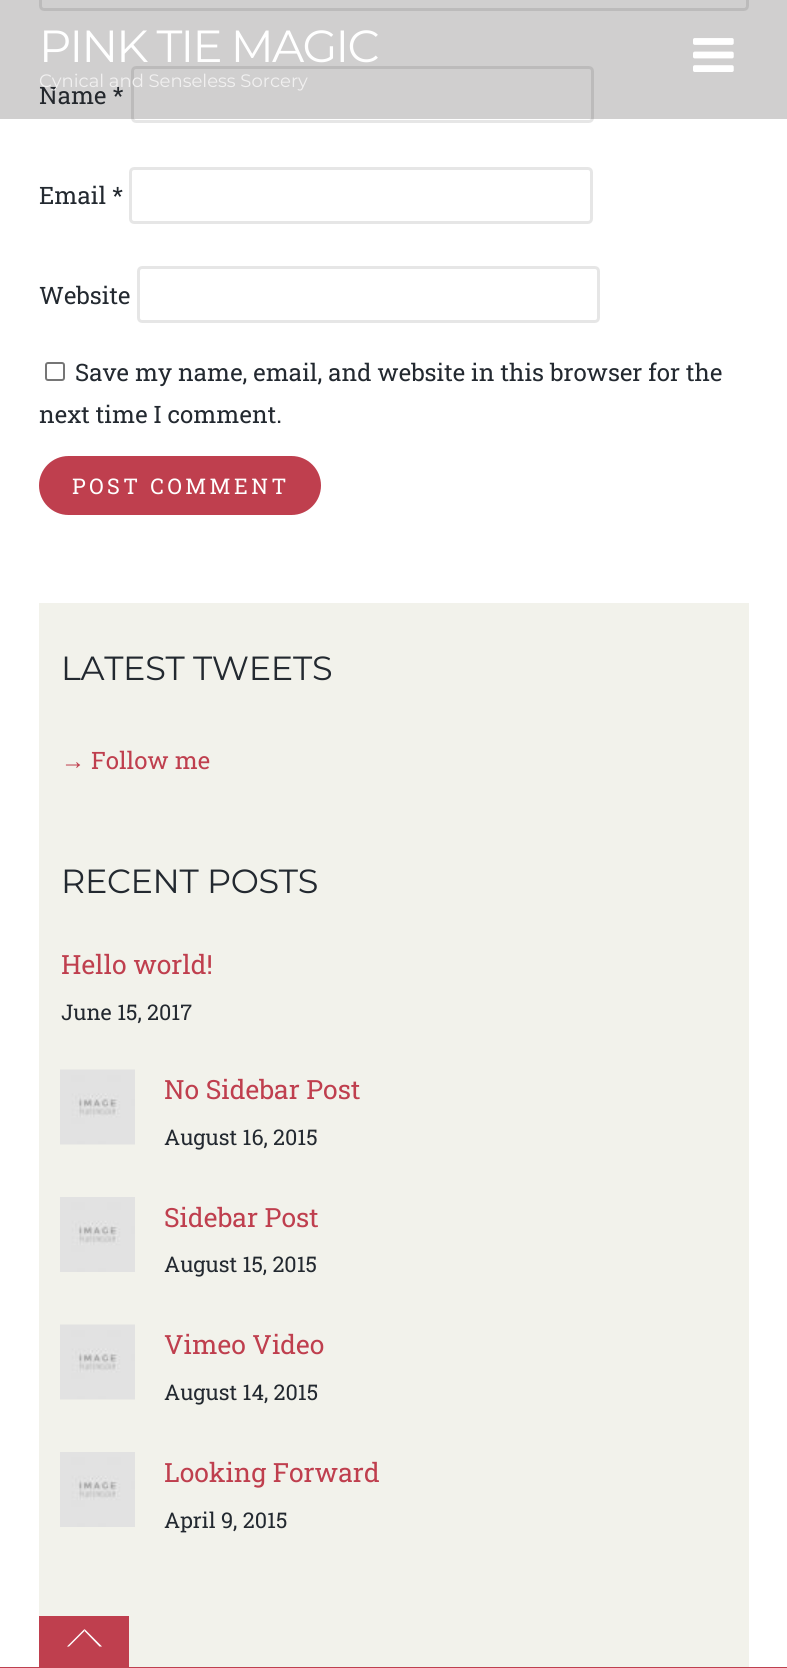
#include <cairo.h>
#include <math.h>
#include <stddef.h>


static void rgb(cairo_t *cr, int r, int g, int b)
{
	cairo_set_source_rgb(cr, r / 255.0, g / 255.0, b / 255.0);
}

static void face(cairo_t *cr, const char *family, double size, int italic, int bold)
{
	cairo_select_font_face(cr, family, italic ? CAIRO_FONT_SLANT_ITALIC : CAIRO_FONT_SLANT_NORMAL,
		bold ? CAIRO_FONT_WEIGHT_BOLD : CAIRO_FONT_WEIGHT_NORMAL);
	cairo_set_font_size(cr, size);
}

static void label(cairo_t *cr, double x, double y, const char *s)
{
	cairo_move_to(cr, x, y);
	cairo_show_text(cr, s);
}

static void tracked(cairo_t *cr, double x, double y, const char *s, double letter, double word)
{
	cairo_move_to(cr, x, y);
	while (*s) {
		char ch[5] = {0};
		int n = 0;
		do ch[n++] = *s++; while ((*s & 0xC0) == 0x80);
		cairo_show_text(cr, ch);
		cairo_rel_move_to(cr, letter + word * (*ch == ' '), 0);
	}
}

static void rect(cairo_t *cr, double x, double y, double w, double h)
{
	cairo_rectangle(cr, x, y, w, h);
	cairo_fill(cr);
}

static void rrect(cairo_t *cr, double x, double y, double w, double h, double r)
{
	cairo_new_sub_path(cr);
	cairo_arc(cr, x + w - r, y + h - r, r, 0, M_PI / 2);
	cairo_arc(cr, x + r, y + h - r, r, M_PI / 2, M_PI);
	cairo_arc(cr, x + r, y + r, r, M_PI, 1.5 * M_PI);
	cairo_arc(cr, x + w - r, y + r, r, 1.5 * M_PI, 2 * M_PI);
	cairo_close_path(cr);
}

static void image(cairo_t *cr, const char *path, double x, double y, double w, double h)
{
	cairo_surface_t *image = cairo_image_surface_create_from_png(path);
	cairo_save(cr);
	cairo_set_source_surface(cr, image, x, y);
	cairo_rectangle(cr, x, y, w, h);
	cairo_fill(cr);
	cairo_restore(cr);
	cairo_surface_destroy(image);
}

static void draw(cairo_t *cr) {
	rgb(cr, 255, 255, 255);
	cairo_paint(cr);
	rrect(cr, 40.5, -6.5, 707, 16, 3.5);
	rgb(cr, 230, 230, 230);
	cairo_set_line_width(cr, 3);
	cairo_stroke(cr);
	face(cr, "Roboto Slab", 24, 0, 0);
	rgb(cr, 35, 41, 48);
	label(cr, 39, 104, "Name *");
	rrect(cr, 132.5, 67.5, 460, 54, 3.5);
	rgb(cr, 230, 230, 230);
	cairo_stroke(cr);
	cairo_set_source_rgba(cr, 0.161, 0.153, 0.153, 0.22);
	rect(cr, 0, 0, 787, 119);
	face(cr, "Montserrat", 45, 0, 0);
	rgb(cr, 255, 255, 255);
	tracked(cr, 39, 62, "PINK TIE MAGIC", -1.75, 0);
	face(cr, "Montserrat", 18, 0, 0);
	rgb(cr, 241, 240, 240);
	label(cr, 39, 87, "Cynical and Senseless Sorcery");
	image(cr, "image0.png", 693, 38, 41, 34);
	face(cr, "Roboto Slab", 24, 0, 0);
	rgb(cr, 35, 41, 48);
	label(cr, 39, 204, "Email *");
	rrect(cr, 130.5, 168.5, 461, 54, 3.5);
	rgb(cr, 230, 230, 230);
	cairo_stroke(cr);
	rgb(cr, 35, 41, 48);
	label(cr, 39, 304, "Website");
	rrect(cr, 138.5, 267.5, 460, 54, 3.5);
	rgb(cr, 230, 230, 230);
	cairo_stroke(cr);
	rrect(cr, 46, 363, 18, 17, 2);
	rgb(cr, 118, 118, 118);
	cairo_set_line_width(cr, 2);
	cairo_stroke(cr);
	rgb(cr, 35, 41, 48);
	label(cr, 75, 381, "Save my name, email, and website in this browser for the");
	label(cr, 39, 423, "next time I comment.");
	rgb(cr, 191, 63, 78);
	rrect(cr, 39, 456, 282, 59, 29.5);
	cairo_fill(cr);
	face(cr, "Roboto Slab", 21.6, 0, 0);
	rgb(cr, 255, 255, 255);
	tracked(cr, 72, 494, "POST COMMENT", 3.5, 0);
	rgb(cr, 242, 242, 235);
	rect(cr, 39, 603, 710, 1064);
	face(cr, "Montserrat", 33.5, 0, 0);
	rgb(cr, 35, 41, 48);
	tracked(cr, 61, 680, "LATEST TWEETS", -0.3, 0);
	face(cr, "Liberation Serif", 24, 0, 0);
	rgb(cr, 191, 63, 78);
	label(cr, 61, 769, "→");
	face(cr, "Roboto Slab", 24, 0, 0);
	label(cr, 91, 769, "Follow me");
	face(cr, "Montserrat", 33.5, 0, 0);
	rgb(cr, 35, 41, 48);
	tracked(cr, 61, 893, "RECENT POSTS", -0.3, 0);
	face(cr, "Roboto Slab", 26.5, 0, 0);
	rgb(cr, 191, 63, 78);
	label(cr, 61, 974, "Hello world!");
	face(cr, "Roboto Slab", 21.6, 0, 0);
	rgb(cr, 35, 41, 48);
	label(cr, 61, 1020, "June 15, 2017");
	image(cr, "image1.png", 60, 1069, 75, 76);
	face(cr, "Roboto Slab", 26.5, 0, 0);
	rgb(cr, 191, 63, 78);
	label(cr, 164, 1099, "No Sidebar Post");
	face(cr, "Roboto Slab", 21.6, 0, 0);
	rgb(cr, 35, 41, 48);
	label(cr, 164, 1145, "August 16, 2015");
	image(cr, "image2.png", 60, 1197, 75, 75);
	face(cr, "Roboto Slab", 26.5, 0, 0);
	rgb(cr, 191, 63, 78);
	label(cr, 164, 1227, "Sidebar Post");
	face(cr, "Roboto Slab", 21.6, 0, 0);
	rgb(cr, 35, 41, 48);
	label(cr, 164, 1272, "August 15, 2015");
	image(cr, "image1.png", 60, 1324, 75, 76);
	face(cr, "Roboto Slab", 26.5, 0, 0);
	rgb(cr, 191, 63, 78);
	label(cr, 164, 1354, "Vimeo Video");
	face(cr, "Roboto Slab", 21.6, 0, 0);
	rgb(cr, 35, 41, 48);
	label(cr, 164, 1400, "August 14, 2015");
	image(cr, "image2.png", 60, 1452, 75, 75);
	face(cr, "Roboto Slab", 26.5, 0, 0);
	rgb(cr, 191, 63, 78);
	label(cr, 164, 1482, "Looking Forward");
	face(cr, "Roboto Slab", 21.6, 0, 0);
	rgb(cr, 35, 41, 48);
	label(cr, 164, 1528, "April 9, 2015");
	rgb(cr, 191, 63, 78);
	rect(cr, 0, 1667, 787, 1);
	rect(cr, 39, 1616, 90, 51);
	rgb(cr, 255, 255, 255);
	cairo_new_path(cr);
	cairo_move_to(cr, 84.5, 1629);
	cairo_line_to(cr, 102, 1646.5);
	cairo_line_to(cr, 99.5, 1646.5);
	cairo_line_to(cr, 84.5, 1631);
	cairo_close_path(cr);
	cairo_fill(cr);
	cairo_new_path(cr);
	cairo_move_to(cr, 67, 1646.5);
	cairo_line_to(cr, 84.5, 1629);
	cairo_line_to(cr, 84.5, 1631);
	cairo_line_to(cr, 69, 1646.5);
	cairo_close_path(cr);
	cairo_fill(cr);
}

int main(void) {
	cairo_surface_t *surface = cairo_image_surface_create(CAIRO_FORMAT_RGB24, 787, 1668);
	cairo_t *cr = cairo_create(surface);
	cairo_font_options_t *options = cairo_font_options_create();
	cairo_font_options_set_hint_metrics(options, CAIRO_HINT_METRICS_OFF);
	cairo_font_options_set_hint_style(options, CAIRO_HINT_STYLE_NONE);
	cairo_set_font_options(cr, options);
	cairo_set_miter_limit(cr, 4);
	draw(cr);
	cairo_surface_write_to_png(surface, "render.png");
	cairo_font_options_destroy(options);
	cairo_destroy(cr);
	cairo_surface_destroy(surface);
	return 0;
}
